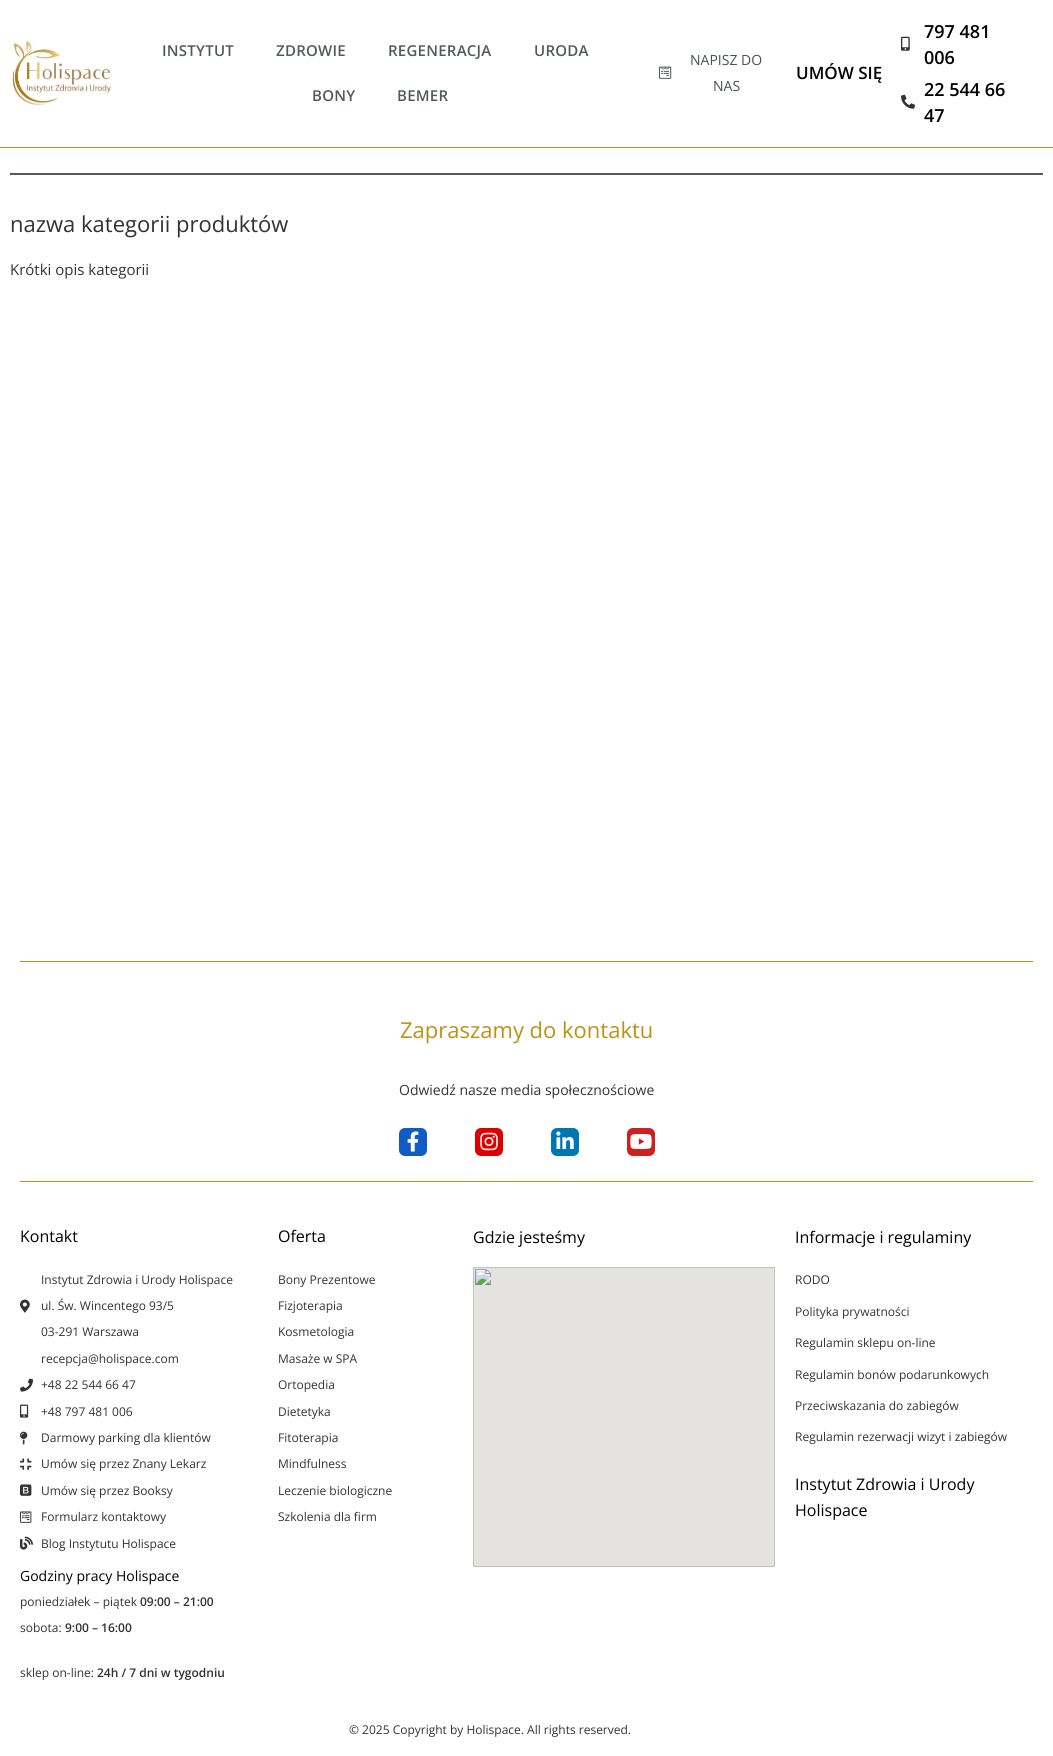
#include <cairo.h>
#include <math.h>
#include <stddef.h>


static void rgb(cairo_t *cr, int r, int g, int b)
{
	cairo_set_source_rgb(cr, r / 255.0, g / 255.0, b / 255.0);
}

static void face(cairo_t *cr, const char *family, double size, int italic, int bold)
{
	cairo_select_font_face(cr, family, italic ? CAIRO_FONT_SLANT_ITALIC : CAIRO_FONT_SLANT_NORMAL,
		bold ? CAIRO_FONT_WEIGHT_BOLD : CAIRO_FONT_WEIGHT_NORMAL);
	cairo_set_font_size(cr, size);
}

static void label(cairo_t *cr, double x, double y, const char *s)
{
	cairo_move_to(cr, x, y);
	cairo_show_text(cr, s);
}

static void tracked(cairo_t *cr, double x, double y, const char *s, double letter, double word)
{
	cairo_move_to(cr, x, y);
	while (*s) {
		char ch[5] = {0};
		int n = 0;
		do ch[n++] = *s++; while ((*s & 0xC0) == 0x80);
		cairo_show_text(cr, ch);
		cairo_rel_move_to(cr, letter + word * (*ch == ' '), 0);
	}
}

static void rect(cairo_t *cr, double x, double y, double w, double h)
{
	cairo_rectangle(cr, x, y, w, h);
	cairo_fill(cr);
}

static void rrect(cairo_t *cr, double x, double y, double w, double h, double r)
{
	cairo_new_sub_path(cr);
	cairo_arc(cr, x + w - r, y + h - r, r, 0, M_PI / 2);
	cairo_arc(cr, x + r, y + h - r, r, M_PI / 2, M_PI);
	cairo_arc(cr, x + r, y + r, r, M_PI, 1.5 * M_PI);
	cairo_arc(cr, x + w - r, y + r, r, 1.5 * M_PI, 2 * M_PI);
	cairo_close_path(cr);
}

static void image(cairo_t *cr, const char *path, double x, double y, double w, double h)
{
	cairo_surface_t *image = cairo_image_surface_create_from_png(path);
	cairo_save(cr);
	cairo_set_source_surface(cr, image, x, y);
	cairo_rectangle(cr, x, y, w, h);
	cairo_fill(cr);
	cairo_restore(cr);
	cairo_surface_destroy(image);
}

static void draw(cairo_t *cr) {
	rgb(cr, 255, 255, 255);
	cairo_paint(cr);
	rgb(cr, 188, 146, 19);
	rect(cr, 0, 147, 1053, 1);
	image(cr, "image0.png", 12, 41, 99, 64);
	face(cr, "Open Sans SemiBold", 15, 0, 0);
	rgb(cr, 84, 89, 95);
	tracked(cr, 162, 56, "INSTYTUT", 0.25, 0);
	tracked(cr, 276, 56, "ZDROWIE", 0.25, 0);
	tracked(cr, 388, 56, "REGENERACJA", 0.25, 0);
	tracked(cr, 534, 56, "URODA", 0.25, 0);
	tracked(cr, 312, 101, "BONY", 0.25, 0);
	tracked(cr, 397, 101, "BEMER", 0.25, 0);
	image(cr, "image1.png", 659, 66, 13, 13);
	face(cr, "Open Sans", 14, 0, 0);
	rgb(cr, 75, 79, 88);
	label(cr, 690, 65, "NAPISZ DO");
	label(cr, 713, 91, "NAS");
	face(cr, "Open Sans SemiBold", 17, 0, 0);
	rgb(cr, 0, 0, 0);
	label(cr, 796, 79, "UMÓW SIĘ");
	image(cr, "image2.png", 901, 36, 9, 15);
	face(cr, "Open Sans SemiBold", 18, 0, 0);
	label(cr, 924, 38, "797 481");
	label(cr, 924, 64, "006");
	image(cr, "image3.png", 901, 94, 14, 15);
	label(cr, 924, 96, "22 544 66");
	label(cr, 924, 122, "47");
	rgb(cr, 84, 89, 95);
	rect(cr, 10, 173, 1033, 2);
	face(cr, "Open Sans", 22, 0, 0);
	rgb(cr, 51, 51, 51);
	label(cr, 10, 232, "nazwa kategorii produktów");
	face(cr, "Open Sans", 15, 0, 0);
	label(cr, 10, 275, "Krótki opis kategorii");
	rgb(cr, 188, 146, 19);
	rect(cr, 20, 961, 1013, 1);
	face(cr, "Open Sans", 22, 0, 0);
	label(cr, 400, 1038, "Zapraszamy do kontaktu");
	face(cr, "Open Sans", 14, 0, 0);
	rgb(cr, 51, 51, 51);
	label(cr, 399, 1095, "Odwiedź nasze media społecznościowe");
	rgb(cr, 17, 91, 197);
	rrect(cr, 399, 1128, 28, 28, 6);
	cairo_fill(cr);
	image(cr, "image4.png", 407, 1131, 12, 21);
	rgb(cr, 222, 0, 0);
	rrect(cr, 475, 1128, 28, 28, 6);
	cairo_fill(cr);
	image(cr, "image5.png", 480, 1132, 18, 19);
	rgb(cr, 0, 119, 181);
	rrect(cr, 551, 1128, 28, 28, 6);
	cairo_fill(cr);
	image(cr, "image6.png", 556, 1131, 18, 18);
	rgb(cr, 205, 32, 31);
	rrect(cr, 627, 1128, 28, 28, 6);
	cairo_fill(cr);
	image(cr, "image7.png", 630, 1134, 22, 15);
	rgb(cr, 188, 146, 19);
	rect(cr, 20, 1181, 1013, 1);
	face(cr, "Open Sans", 16, 0, 0);
	rgb(cr, 0, 0, 0);
	label(cr, 20, 1242, "Kontakt");
	image(cr, "image8.png", 20, 1299, 10, 14);
	face(cr, "Open Sans", 12, 0, 0);
	rgb(cr, 51, 51, 51);
	label(cr, 41, 1284, "Instytut Zdrowia i Urody Holispace");
	label(cr, 41, 1310, "ul. Św. Wincentego 93/5");
	label(cr, 41, 1336, "03-291 Warszawa");
	label(cr, 41, 1363, "recepcja@holispace.com");
	image(cr, "image9.png", 20, 1378, 13, 14);
	label(cr, 41, 1389, "+48 22 544 66 47");
	image(cr, "image10.png", 20, 1404, 9, 14);
	label(cr, 41, 1416, "+48 797 481 006");
	image(cr, "image11.png", 20, 1431, 8, 14);
	label(cr, 41, 1442, "Darmowy parking dla klientów");
	image(cr, "image12.png", 20, 1458, 12, 12);
	label(cr, 41, 1468, "Umów się przez Znany Lekarz");
	image(cr, "image13.png", 20, 1484, 12, 12);
	label(cr, 41, 1495, "Umów się przez Booksy");
	image(cr, "image14.png", 20, 1511, 12, 12);
	label(cr, 41, 1521, "Formularz kontaktowy");
	image(cr, "image15.png", 20, 1536, 13, 14);
	label(cr, 41, 1548, "Blog Instytutu Holispace");
	face(cr, "Open Sans", 14, 0, 0);
	rgb(cr, 0, 0, 0);
	label(cr, 20, 1581, "Godziny pracy Holispace");
	face(cr, "Open Sans", 12, 0, 0);
	rgb(cr, 51, 51, 51);
	label(cr, 20, 1606, "poniedziałek – piątek");
	face(cr, "Open Sans SemiBold", 12, 0, 0);
	label(cr, 140, 1606, "09:00 – 21:00");
	face(cr, "Open Sans", 12, 0, 0);
	label(cr, 20, 1632, "sobota:");
	face(cr, "Open Sans SemiBold", 12, 0, 0);
	label(cr, 65, 1632, "9:00 – 16:00");
	face(cr, "Open Sans", 12, 0, 0);
	label(cr, 20, 1677, "sklep on-line:");
	face(cr, "Open Sans SemiBold", 12, 0, 0);
	label(cr, 97, 1677, "24h / 7 dni w tygodniu");
	face(cr, "Open Sans", 16, 0, 0);
	rgb(cr, 0, 0, 0);
	label(cr, 278, 1242, "Oferta");
	face(cr, "Open Sans", 12, 0, 0);
	rgb(cr, 51, 51, 51);
	label(cr, 278, 1284, "Bony Prezentowe");
	label(cr, 278, 1310, "Fizjoterapia");
	label(cr, 278, 1336, "Kosmetologia");
	label(cr, 278, 1363, "Masaże w SPA");
	label(cr, 278, 1389, "Ortopedia");
	label(cr, 278, 1416, "Dietetyka");
	label(cr, 278, 1442, "Fitoterapia");
	label(cr, 278, 1468, "Mindfulness");
	label(cr, 278, 1495, "Leczenie biologiczne");
	label(cr, 278, 1521, "Szkolenia dla firm");
	face(cr, "Open Sans", 16, 0, 0);
	rgb(cr, 0, 0, 0);
	label(cr, 473, 1243, "Gdzie jesteśmy");
	image(cr, "image16.png", 473, 1267, 302, 300);
	label(cr, 795, 1243, "Informacje i regulaminy");
	face(cr, "Open Sans", 12, 0, 0);
	rgb(cr, 51, 51, 51);
	label(cr, 795, 1284, "RODO");
	label(cr, 795, 1316, "Polityka prywatności");
	label(cr, 795, 1347, "Regulamin sklepu on-line");
	label(cr, 795, 1379, "Regulamin bonów podarunkowych");
	label(cr, 795, 1410, "Przeciwskazania do zabiegów");
	label(cr, 795, 1441, "Regulamin rezerwacji wizyt i zabiegów");
	face(cr, "Open Sans", 16, 0, 0);
	rgb(cr, 0, 0, 0);
	label(cr, 795, 1490, "Instytut Zdrowia i Urody");
	label(cr, 795, 1516, "Holispace");
	face(cr, "Open Sans", 12, 0, 0);
	rgb(cr, 51, 51, 51);
	label(cr, 349, 1734, "© 2025 Copyright by Holispace. All rights reserved.");
}

int main(void) {
	cairo_surface_t *surface = cairo_image_surface_create(CAIRO_FORMAT_RGB24, 1053, 1756);
	cairo_t *cr = cairo_create(surface);
	cairo_font_options_t *options = cairo_font_options_create();
	cairo_font_options_set_hint_metrics(options, CAIRO_HINT_METRICS_OFF);
	cairo_font_options_set_hint_style(options, CAIRO_HINT_STYLE_NONE);
	cairo_set_font_options(cr, options);
	cairo_set_miter_limit(cr, 4);
	draw(cr);
	cairo_surface_write_to_png(surface, "render.png");
	cairo_font_options_destroy(options);
	cairo_destroy(cr);
	cairo_surface_destroy(surface);
	return 0;
}
